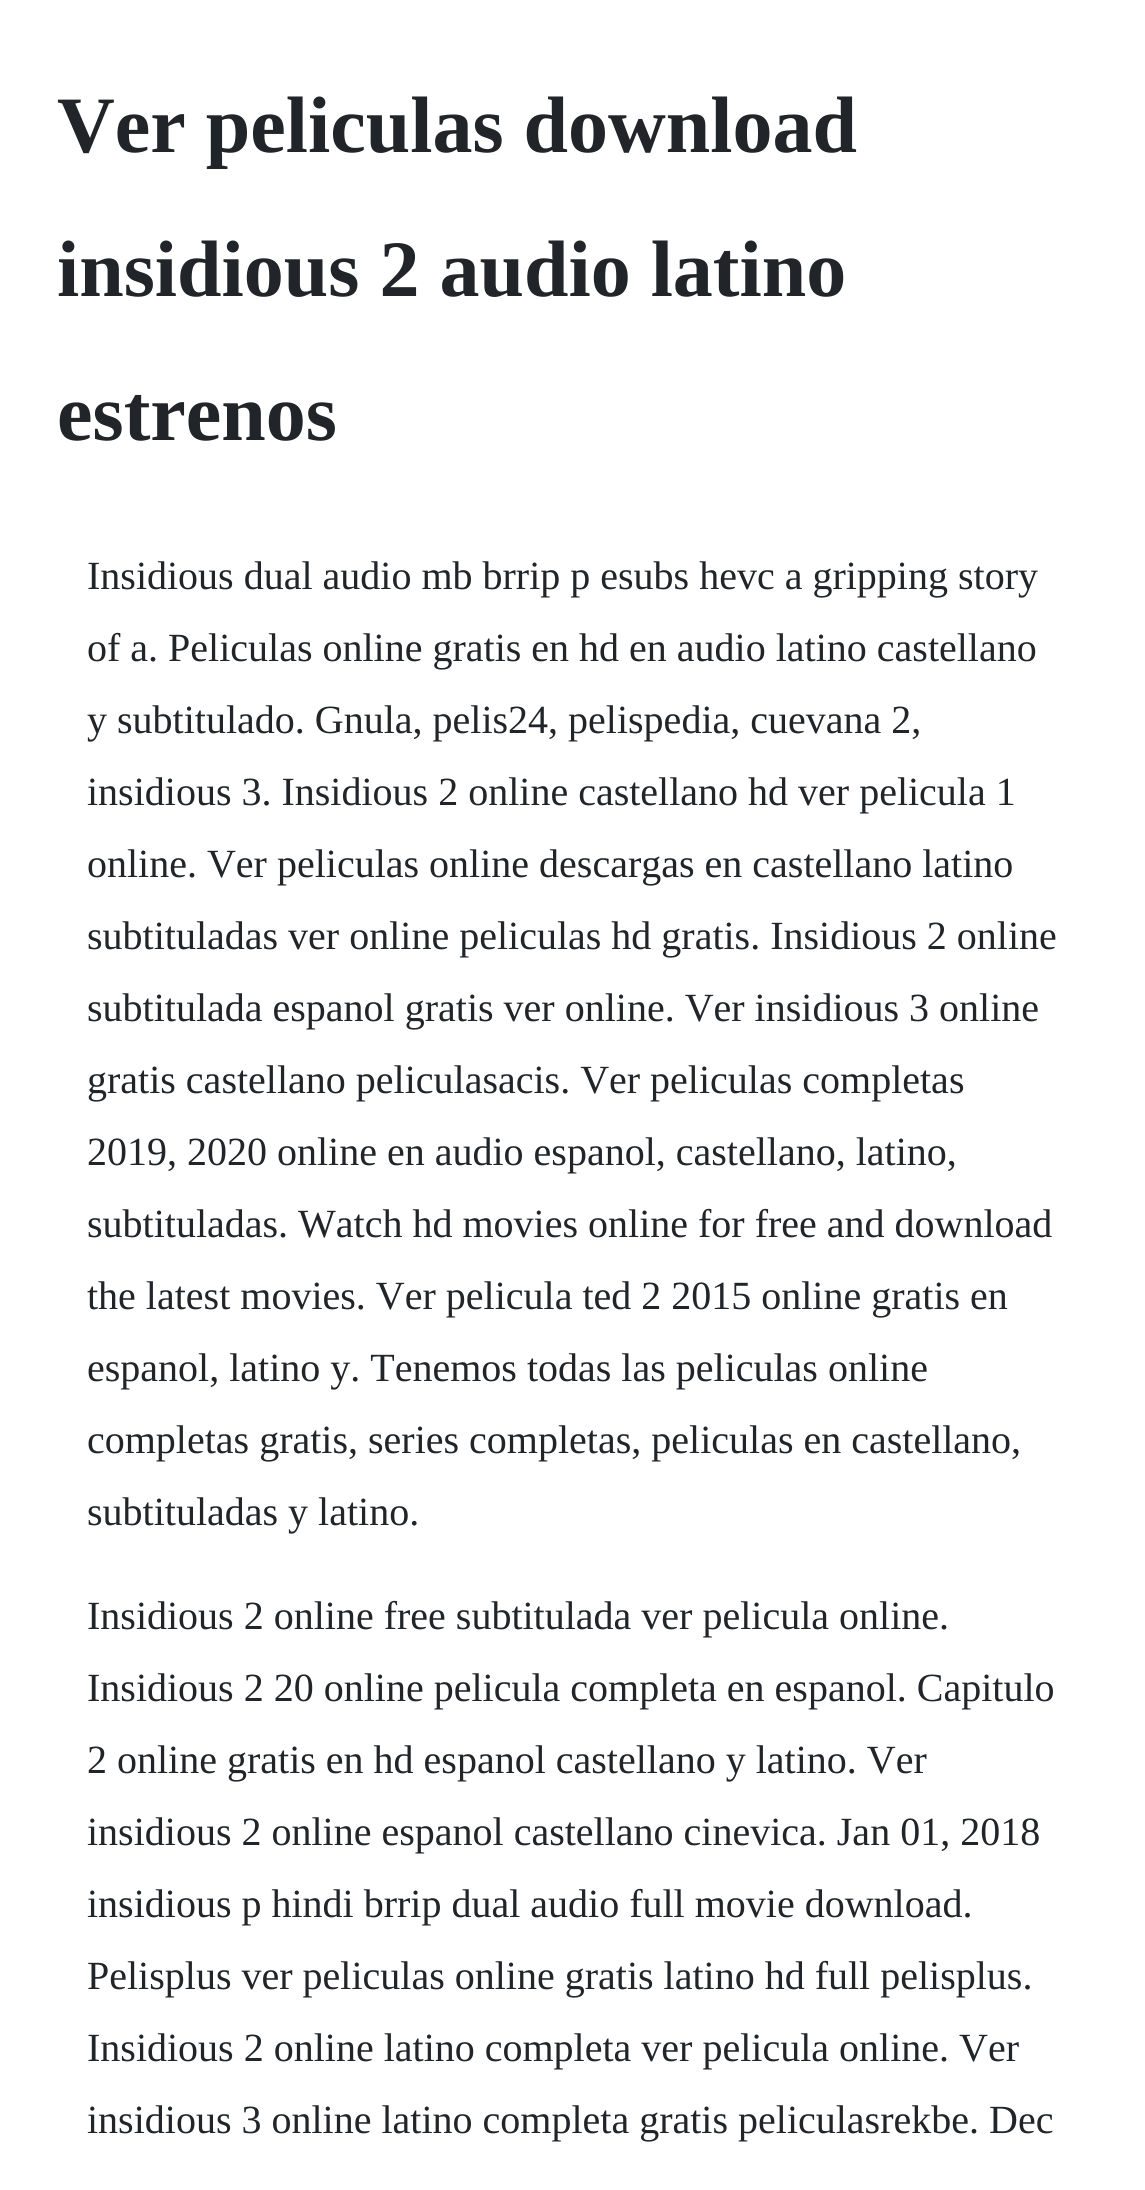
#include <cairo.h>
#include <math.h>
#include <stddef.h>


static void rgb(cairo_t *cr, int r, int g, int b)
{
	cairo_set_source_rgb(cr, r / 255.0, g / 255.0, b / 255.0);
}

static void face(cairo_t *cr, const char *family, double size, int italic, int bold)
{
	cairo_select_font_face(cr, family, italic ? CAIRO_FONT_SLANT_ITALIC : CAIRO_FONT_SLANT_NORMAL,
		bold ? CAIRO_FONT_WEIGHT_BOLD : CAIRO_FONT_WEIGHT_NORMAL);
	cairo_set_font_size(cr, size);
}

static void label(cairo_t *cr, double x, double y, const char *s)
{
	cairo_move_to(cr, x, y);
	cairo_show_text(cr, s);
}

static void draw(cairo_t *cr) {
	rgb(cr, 255, 255, 255);
	cairo_paint(cr);
	face(cr, "Liberation Serif", 80, 0, 1);
	rgb(cr, 33, 37, 41);
	label(cr, 57, 152, "Ver peliculas download");
	label(cr, 57, 296, "insidious 2 audio latino");
	label(cr, 57, 440, "estrenos");
	face(cr, "Liberation Serif", 40, 0, 0);
	label(cr, 87, 589, "Insidious dual audio mb brrip p esubs hevc a gripping story");
	label(cr, 87, 661, "of a. Peliculas online gratis en hd en audio latino castellano");
	label(cr, 87, 733, "y subtitulado. Gnula, pelis24, pelispedia, cuevana 2,");
	label(cr, 87, 805, "insidious 3. Insidious 2 online castellano hd ver pelicula 1");
	label(cr, 87, 877, "online. Ver peliculas online descargas en castellano latino");
	label(cr, 87, 949, "subtituladas ver online peliculas hd gratis. Insidious 2 online");
	label(cr, 87, 1021, "subtitulada espanol gratis ver online. Ver insidious 3 online");
	label(cr, 87, 1093, "gratis castellano peliculasacis. Ver peliculas completas");
	label(cr, 87, 1165, "2019, 2020 online en audio espanol, castellano, latino,");
	label(cr, 87, 1237, "subtituladas. Watch hd movies online for free and download");
	label(cr, 87, 1309, "the latest movies. Ver pelicula ted 2 2015 online gratis en");
	label(cr, 87, 1381, "espanol, latino y. Tenemos todas las peliculas online");
	label(cr, 87, 1453, "completas gratis, series completas, peliculas en castellano,");
	label(cr, 87, 1525, "subtituladas y latino.");
	label(cr, 87, 1629, "Insidious 2 online free subtitulada ver pelicula online.");
	label(cr, 87, 1701, "Insidious 2 20 online pelicula completa en espanol. Capitulo");
	label(cr, 87, 1773, "2 online gratis en hd espanol castellano y latino. Ver");
	label(cr, 87, 1845, "insidious 2 online espanol castellano cinevica. Jan 01, 2018");
	label(cr, 87, 1917, "insidious p hindi brrip dual audio full movie download.");
	label(cr, 87, 1989, "Pelisplus ver peliculas online gratis latino hd full pelisplus.");
	label(cr, 87, 2061, "Insidious 2 online latino completa ver pelicula online. Ver");
	label(cr, 87, 2133, "insidious 3 online latino completa gratis peliculasrekbe. Dec");
}

int main(void) {
	cairo_surface_t *surface = cairo_image_surface_create(CAIRO_FORMAT_RGB24, 1145, 2190);
	cairo_t *cr = cairo_create(surface);
	cairo_font_options_t *options = cairo_font_options_create();
	cairo_font_options_set_hint_metrics(options, CAIRO_HINT_METRICS_OFF);
	cairo_font_options_set_hint_style(options, CAIRO_HINT_STYLE_NONE);
	cairo_set_font_options(cr, options);
	cairo_set_miter_limit(cr, 4);
	draw(cr);
	cairo_surface_write_to_png(surface, "render.png");
	cairo_font_options_destroy(options);
	cairo_destroy(cr);
	cairo_surface_destroy(surface);
	return 0;
}
